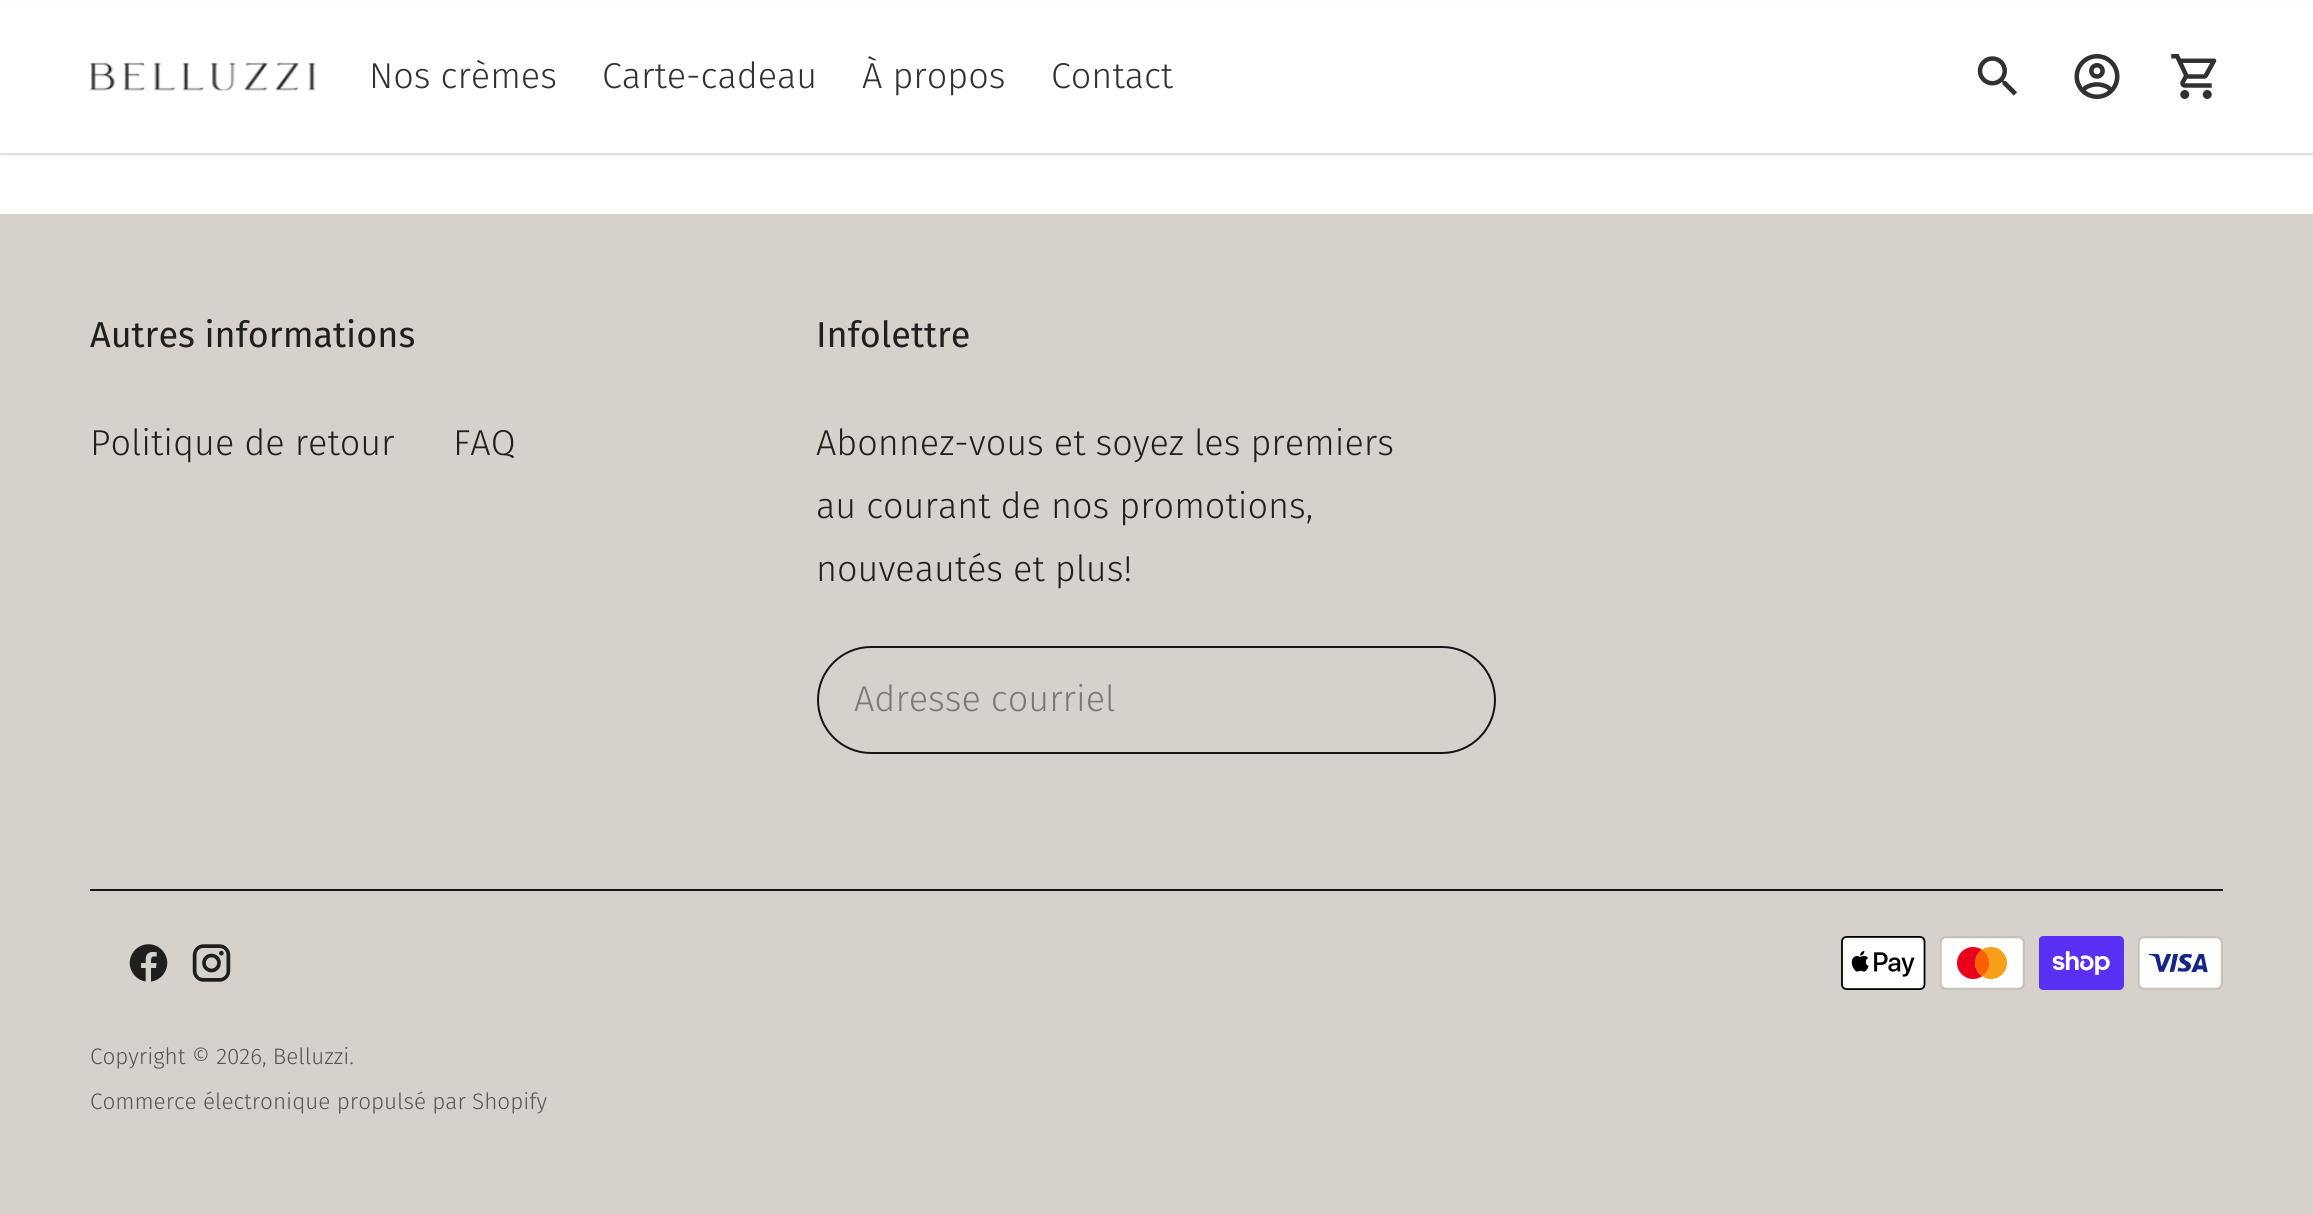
#include <cairo.h>
#include <math.h>
#include <stddef.h>


static void rgb(cairo_t *cr, int r, int g, int b)
{
	cairo_set_source_rgb(cr, r / 255.0, g / 255.0, b / 255.0);
}

static void face(cairo_t *cr, const char *family, double size, int italic, int bold)
{
	cairo_select_font_face(cr, family, italic ? CAIRO_FONT_SLANT_ITALIC : CAIRO_FONT_SLANT_NORMAL,
		bold ? CAIRO_FONT_WEIGHT_BOLD : CAIRO_FONT_WEIGHT_NORMAL);
	cairo_set_font_size(cr, size);
}

static void label(cairo_t *cr, double x, double y, const char *s)
{
	cairo_move_to(cr, x, y);
	cairo_show_text(cr, s);
}

static void rect(cairo_t *cr, double x, double y, double w, double h)
{
	cairo_rectangle(cr, x, y, w, h);
	cairo_fill(cr);
}

static void rrect(cairo_t *cr, double x, double y, double w, double h, double r)
{
	cairo_new_sub_path(cr);
	cairo_arc(cr, x + w - r, y + h - r, r, 0, M_PI / 2);
	cairo_arc(cr, x + r, y + h - r, r, M_PI / 2, M_PI);
	cairo_arc(cr, x + r, y + r, r, M_PI, 1.5 * M_PI);
	cairo_arc(cr, x + w - r, y + r, r, 1.5 * M_PI, 2 * M_PI);
	cairo_close_path(cr);
}

static void soft_shadow(cairo_t *cr, double x, double y, double w, double h, double r, double blur, double alpha)
{
	cairo_push_group_with_content(cr, CAIRO_CONTENT_ALPHA);
	cairo_set_operator(cr, CAIRO_OPERATOR_SOURCE);
	for (int i = 15; i >= -15 && fmin(w, h) + blur * i / 3 > 0; i -= 2) {
		double e = blur * i / 6;
		cairo_set_source_rgba(cr, 0, 0, 0, alpha * erfc((i - 1) / 8.5) / 2);
		rrect(cr, x - e, y - e, w + 2 * e, h + 2 * e, fmax(0, fmin(r + e + blur * .6, fmin(w, h) / 2 + e)));
		cairo_fill(cr);
	}
	cairo_pattern_t *soft = cairo_pop_group(cr);
	cairo_mask(cr, soft);
	cairo_pattern_destroy(soft);
}

static void image(cairo_t *cr, const char *path, double x, double y, double w, double h)
{
	cairo_surface_t *image = cairo_image_surface_create_from_png(path);
	cairo_save(cr);
	cairo_set_source_surface(cr, image, x, y);
	cairo_rectangle(cr, x, y, w, h);
	cairo_fill(cr);
	cairo_restore(cr);
	cairo_surface_destroy(image);
}

static void draw(cairo_t *cr) {
	rgb(cr, 255, 255, 255);
	cairo_paint(cr);
	rgb(cr, 0, 0, 0);
	soft_shadow(cr, 0, 2, 2313, 153, 0, 1, 0.15);
	rgb(cr, 255, 255, 255);
	rect(cr, 0, 1, 2313, 152);
	image(cr, "image0.png", 90, 62, 225, 29);
	face(cr, "Fira Sans Light", 36, 0, 0);
	rgb(cr, 49, 49, 49);
	label(cr, 369, 88, "Nos crèmes");
	label(cr, 602, 88, "Carte-cadeau");
	label(cr, 862, 88, "À propos");
	label(cr, 1051, 88, "Contact");
	image(cr, "image1.png", 1977, 56, 40, 40);
	image(cr, "image2.png", 2074, 54, 46, 45);
	image(cr, "image3.png", 2171, 54, 46, 45);
	rgb(cr, 214, 209, 202);
	rect(cr, 0, 214, 2313, 1000);
	face(cr, "Fira Sans", 36, 0, 0);
	rgb(cr, 31, 31, 31);
	label(cr, 90, 347, "Autres informations");
	face(cr, "Fira Sans Light", 36, 0, 0);
	label(cr, 90, 455, "Politique de retour");
	label(cr, 453, 455, "FAQ");
	face(cr, "Fira Sans", 36, 0, 0);
	label(cr, 816, 347, "Infolettre");
	face(cr, "Fira Sans Light", 36, 0, 0);
	label(cr, 816, 455, "Abonnez-vous et soyez les premiers");
	label(cr, 816, 518, "au courant de nos promotions,");
	label(cr, 816, 581, "nouveautés et plus!");
	rrect(cr, 818, 647, 677, 106, 53);
	rgb(cr, 20, 20, 20);
	cairo_stroke(cr);
	rgb(cr, 123, 120, 117);
	label(cr, 854, 711, "Adresse courriel");
	rgb(cr, 20, 20, 20);
	rect(cr, 90, 889, 2133, 2);
	image(cr, "image4.png", 129, 944, 39, 38);
	image(cr, "image5.png", 192, 944, 39, 38);
	image(cr, "image6.png", 1841, 936, 85, 54);
	image(cr, "image7.png", 1940, 936, 85, 54);
	image(cr, "image8.png", 2039, 936, 85, 54);
	image(cr, "image9.png", 2138, 936, 85, 54);
	face(cr, "Fira Sans Light", 22.5, 0, 0);
	rgb(cr, 86, 84, 82);
	label(cr, 90, 1064, "Copyright © 2026, Belluzzi.");
	label(cr, 90, 1109, "Commerce électronique propulsé par Shopify");
}

int main(void) {
	cairo_surface_t *surface = cairo_image_surface_create(CAIRO_FORMAT_RGB24, 2313, 1214);
	cairo_t *cr = cairo_create(surface);
	cairo_font_options_t *options = cairo_font_options_create();
	cairo_font_options_set_hint_metrics(options, CAIRO_HINT_METRICS_OFF);
	cairo_font_options_set_hint_style(options, CAIRO_HINT_STYLE_NONE);
	cairo_set_font_options(cr, options);
	cairo_set_miter_limit(cr, 4);
	draw(cr);
	cairo_surface_write_to_png(surface, "render.png");
	cairo_font_options_destroy(options);
	cairo_destroy(cr);
	cairo_surface_destroy(surface);
	return 0;
}
